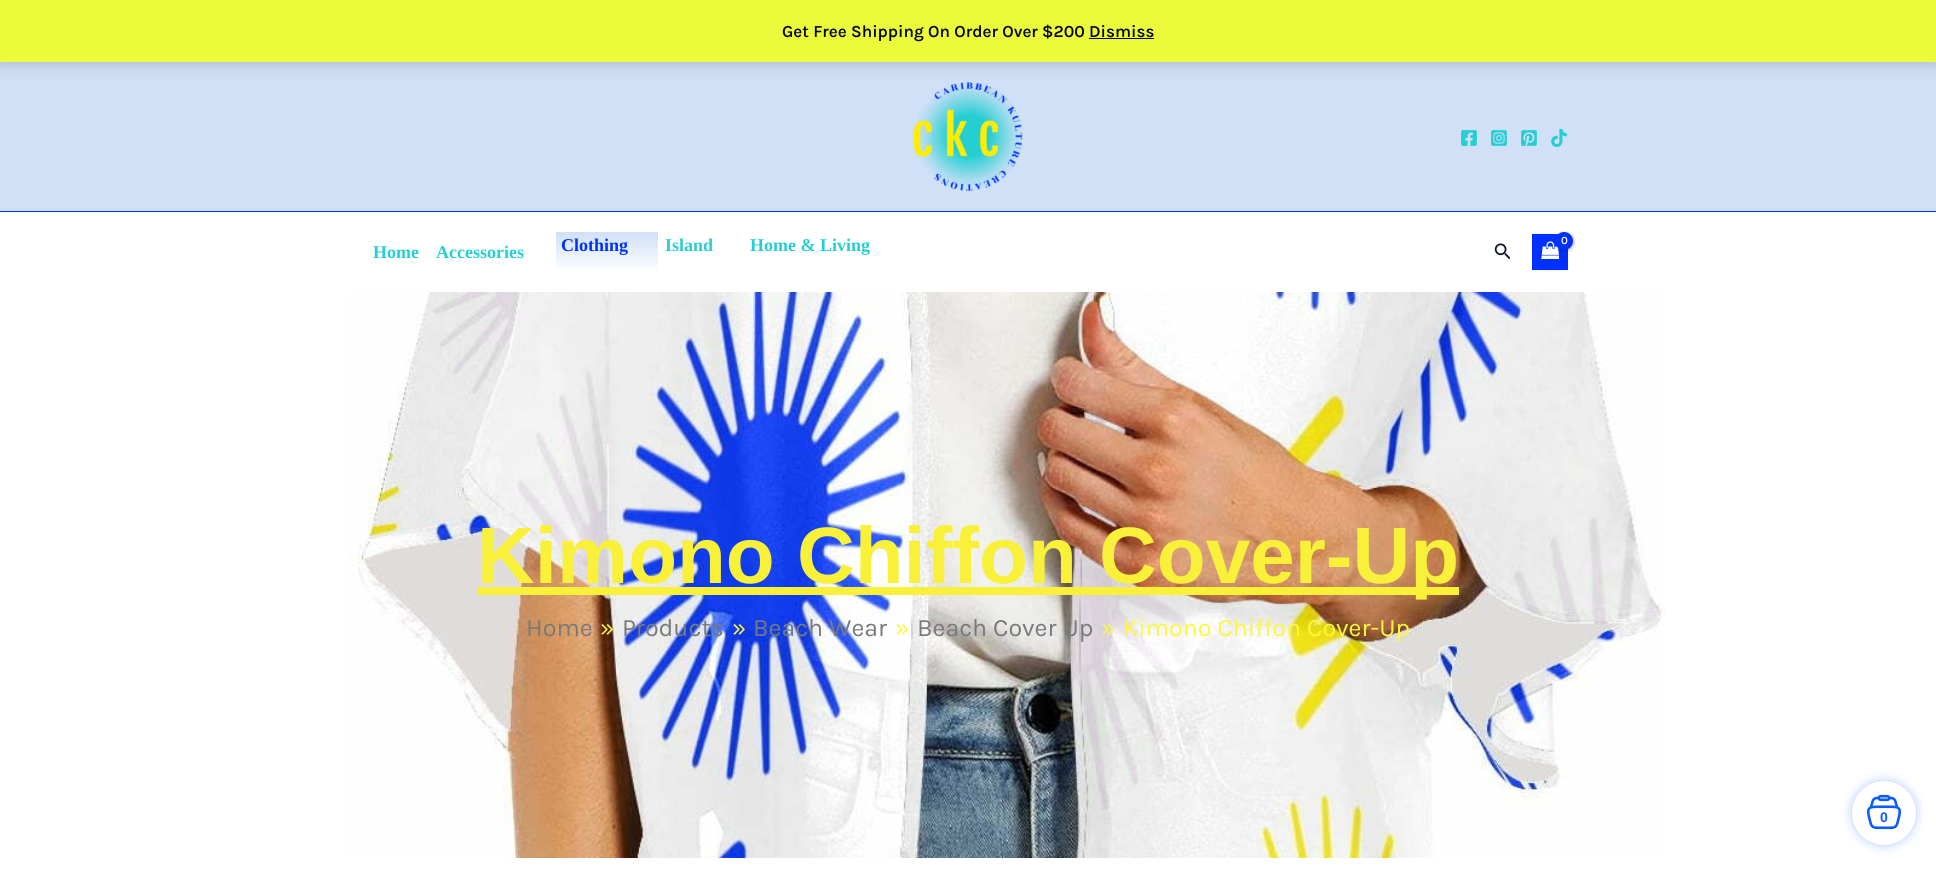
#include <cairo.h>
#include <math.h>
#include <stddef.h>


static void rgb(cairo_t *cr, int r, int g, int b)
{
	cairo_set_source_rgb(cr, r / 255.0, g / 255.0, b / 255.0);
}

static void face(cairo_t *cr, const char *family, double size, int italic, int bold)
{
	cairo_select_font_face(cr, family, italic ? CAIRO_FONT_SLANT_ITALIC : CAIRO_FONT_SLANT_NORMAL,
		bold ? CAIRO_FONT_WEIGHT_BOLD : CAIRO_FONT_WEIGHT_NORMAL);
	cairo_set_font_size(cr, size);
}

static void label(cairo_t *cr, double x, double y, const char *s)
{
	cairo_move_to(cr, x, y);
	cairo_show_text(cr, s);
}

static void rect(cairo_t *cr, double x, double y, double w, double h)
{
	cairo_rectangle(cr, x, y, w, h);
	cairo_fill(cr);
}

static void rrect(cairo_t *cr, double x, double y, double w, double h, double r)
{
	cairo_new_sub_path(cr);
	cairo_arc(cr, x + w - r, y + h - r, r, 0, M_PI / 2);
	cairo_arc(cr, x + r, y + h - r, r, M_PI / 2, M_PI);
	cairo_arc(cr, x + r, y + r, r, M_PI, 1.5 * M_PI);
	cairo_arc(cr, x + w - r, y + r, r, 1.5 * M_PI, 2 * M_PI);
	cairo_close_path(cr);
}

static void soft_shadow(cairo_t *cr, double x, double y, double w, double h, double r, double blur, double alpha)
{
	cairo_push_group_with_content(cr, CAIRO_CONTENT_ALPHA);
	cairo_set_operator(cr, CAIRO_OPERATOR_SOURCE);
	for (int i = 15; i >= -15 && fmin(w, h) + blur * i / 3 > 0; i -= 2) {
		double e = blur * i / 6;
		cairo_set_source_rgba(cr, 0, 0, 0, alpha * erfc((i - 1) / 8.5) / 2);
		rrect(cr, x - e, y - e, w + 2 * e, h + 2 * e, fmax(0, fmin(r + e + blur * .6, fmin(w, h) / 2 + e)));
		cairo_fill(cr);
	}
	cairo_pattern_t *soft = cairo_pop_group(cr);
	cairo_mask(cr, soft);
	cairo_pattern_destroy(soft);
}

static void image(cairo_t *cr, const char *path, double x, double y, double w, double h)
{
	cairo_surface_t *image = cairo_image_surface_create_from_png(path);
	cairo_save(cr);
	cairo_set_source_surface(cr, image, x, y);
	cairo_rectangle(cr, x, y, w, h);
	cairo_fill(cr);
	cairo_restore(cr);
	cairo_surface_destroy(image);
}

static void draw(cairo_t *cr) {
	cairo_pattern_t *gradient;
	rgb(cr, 255, 255, 255);
	cairo_paint(cr);
	rgb(cr, 207, 224, 247);
	rect(cr, 0, 62, 1936, 149);
	image(cr, "image0.png", 913, 82, 110, 109);
	rgb(cr, 0, 0, 0);
	soft_shadow(cr, 0, 1, 1936, 62, 0, 8.5, 0.2);
	rgb(cr, 235, 251, 59);
	rect(cr, 0, 0, 1936, 62);
	face(cr, "Karla SemiBold", 17, 0, 0);
	rgb(cr, 7, 6, 20);
	label(cr, 782, 37, "Get Free Shipping On Order Over $200 Dismiss");
	rect(cr, 1089, 38, 65, 1);
	rgb(cr, 0, 48, 255);
	rect(cr, 0, 211, 1936, 1);
	image(cr, "image1.png", 1461, 130, 16, 16);
	image(cr, "image2.png", 1491, 130, 16, 16);
	image(cr, "image3.png", 1521, 130, 16, 16);
	image(cr, "image4.png", 1551, 129, 16, 18);
	face(cr, "Liberation Serif", 18, 0, 1);
	rgb(cr, 37, 206, 209);
	label(cr, 373, 258, "Home");
	label(cr, 436, 258, "Accessories");
	gradient = cairo_pattern_create_linear(607, 232, 607, 272);
	cairo_pattern_add_color_stop_rgba(gradient, 0, 0.812, 0.878, 0.969, 1);
	cairo_pattern_add_color_stop_rgba(gradient, 1, 1, 1, 1, 1);
	cairo_set_source(cr, gradient);
	cairo_pattern_destroy(gradient);
	rect(cr, 556, 232, 102, 38);
	rgb(cr, 0, 48, 255);
	label(cr, 561, 251, "Clothing");
	rgb(cr, 37, 206, 209);
	label(cr, 665, 251, "Island");
	label(cr, 750, 251, "Home & Living");
	rgb(cr, 0, 48, 255);
	rect(cr, 1532, 234, 36, 36);
	image(cr, "image5.png", 1541, 241, 18, 18);
	rgb(cr, 0, 0, 0);
	soft_shadow(cr, 1556, 233, 18, 18, 9, 1.5, 0.3);
	rgb(cr, 0, 48, 255);
	cairo_arc(cr, 1564, 241, 9, 0, 2 * M_PI);
	cairo_fill(cr);
	face(cr, "Karla SemiBold", 11, 0, 0);
	rgb(cr, 255, 255, 255);
	label(cr, 1561, 244, "0");
	image(cr, "image6.png", 1494, 243, 16, 17);
	image(cr, "image7.png", 349, 292, 1316, 566);
	rgb(cr, 249, 240, 58);
	rect(cr, 477, 587, 982, 8);
	face(cr, "Liberation Sans", 80, 0, 1);
	label(cr, 477, 583, "Kimono Chiffon Cover-Up");
	face(cr, "Karla", 25, 0, 0);
	rgb(cr, 120, 121, 124);
	label(cr, 526, 636, "Home");
	rgb(cr, 252, 248, 61);
	label(cr, 600, 636, "»");
	rgb(cr, 120, 121, 124);
	label(cr, 622, 636, "Products");
	rgb(cr, 252, 248, 61);
	label(cr, 732, 636, "»");
	rgb(cr, 120, 121, 124);
	label(cr, 753, 636, "Beach Wear");
	rgb(cr, 252, 248, 61);
	label(cr, 895, 636, "»");
	rgb(cr, 120, 121, 124);
	label(cr, 917, 636, "Beach Cover Up");
	rgb(cr, 252, 248, 61);
	label(cr, 1101, 636, "»");
	label(cr, 1123, 636, "Kimono Chiffon Cover-Up");
	rgb(cr, 10, 92, 255);
	soft_shadow(cr, 1860, 789, 48, 48, 24, 8, 1);
	rgb(cr, 255, 255, 255);
	cairo_arc(cr, 1884, 813, 32, 0, 2 * M_PI);
	cairo_fill(cr);
	image(cr, "image8.png", 1866, 794, 36, 36);
	face(cr, "Liberation Sans", 14, 0, 1);
	rgb(cr, 10, 92, 255);
	label(cr, 1880, 822, "0");
}

int main(void) {
	cairo_surface_t *surface = cairo_image_surface_create(CAIRO_FORMAT_RGB24, 1936, 875);
	cairo_t *cr = cairo_create(surface);
	cairo_font_options_t *options = cairo_font_options_create();
	cairo_font_options_set_hint_metrics(options, CAIRO_HINT_METRICS_OFF);
	cairo_font_options_set_hint_style(options, CAIRO_HINT_STYLE_NONE);
	cairo_set_font_options(cr, options);
	cairo_set_miter_limit(cr, 4);
	draw(cr);
	cairo_surface_write_to_png(surface, "render.png");
	cairo_font_options_destroy(options);
	cairo_destroy(cr);
	cairo_surface_destroy(surface);
	return 0;
}
